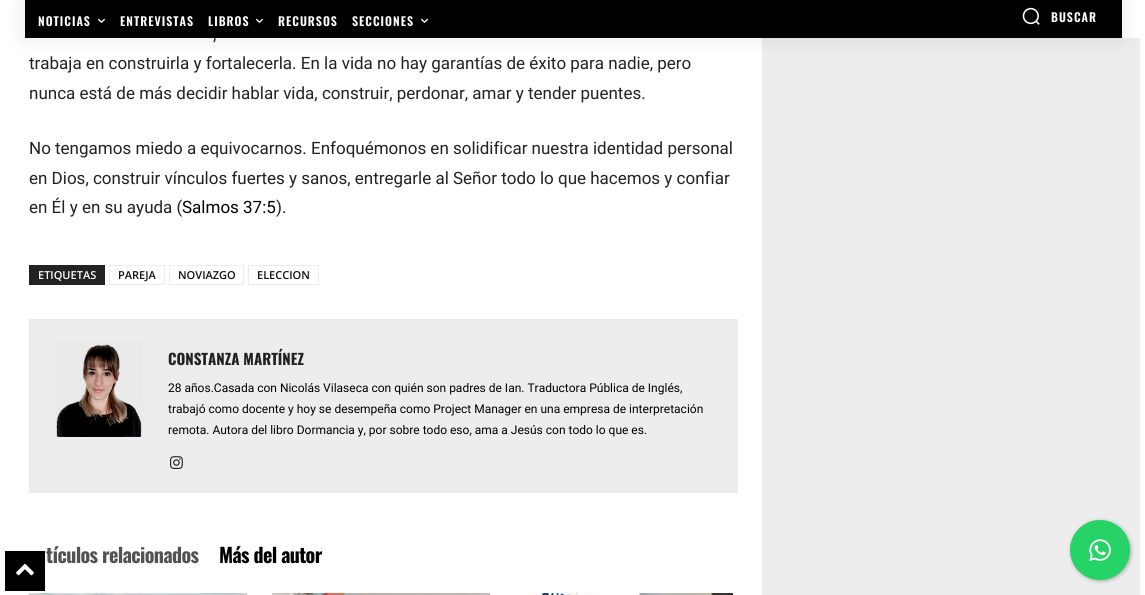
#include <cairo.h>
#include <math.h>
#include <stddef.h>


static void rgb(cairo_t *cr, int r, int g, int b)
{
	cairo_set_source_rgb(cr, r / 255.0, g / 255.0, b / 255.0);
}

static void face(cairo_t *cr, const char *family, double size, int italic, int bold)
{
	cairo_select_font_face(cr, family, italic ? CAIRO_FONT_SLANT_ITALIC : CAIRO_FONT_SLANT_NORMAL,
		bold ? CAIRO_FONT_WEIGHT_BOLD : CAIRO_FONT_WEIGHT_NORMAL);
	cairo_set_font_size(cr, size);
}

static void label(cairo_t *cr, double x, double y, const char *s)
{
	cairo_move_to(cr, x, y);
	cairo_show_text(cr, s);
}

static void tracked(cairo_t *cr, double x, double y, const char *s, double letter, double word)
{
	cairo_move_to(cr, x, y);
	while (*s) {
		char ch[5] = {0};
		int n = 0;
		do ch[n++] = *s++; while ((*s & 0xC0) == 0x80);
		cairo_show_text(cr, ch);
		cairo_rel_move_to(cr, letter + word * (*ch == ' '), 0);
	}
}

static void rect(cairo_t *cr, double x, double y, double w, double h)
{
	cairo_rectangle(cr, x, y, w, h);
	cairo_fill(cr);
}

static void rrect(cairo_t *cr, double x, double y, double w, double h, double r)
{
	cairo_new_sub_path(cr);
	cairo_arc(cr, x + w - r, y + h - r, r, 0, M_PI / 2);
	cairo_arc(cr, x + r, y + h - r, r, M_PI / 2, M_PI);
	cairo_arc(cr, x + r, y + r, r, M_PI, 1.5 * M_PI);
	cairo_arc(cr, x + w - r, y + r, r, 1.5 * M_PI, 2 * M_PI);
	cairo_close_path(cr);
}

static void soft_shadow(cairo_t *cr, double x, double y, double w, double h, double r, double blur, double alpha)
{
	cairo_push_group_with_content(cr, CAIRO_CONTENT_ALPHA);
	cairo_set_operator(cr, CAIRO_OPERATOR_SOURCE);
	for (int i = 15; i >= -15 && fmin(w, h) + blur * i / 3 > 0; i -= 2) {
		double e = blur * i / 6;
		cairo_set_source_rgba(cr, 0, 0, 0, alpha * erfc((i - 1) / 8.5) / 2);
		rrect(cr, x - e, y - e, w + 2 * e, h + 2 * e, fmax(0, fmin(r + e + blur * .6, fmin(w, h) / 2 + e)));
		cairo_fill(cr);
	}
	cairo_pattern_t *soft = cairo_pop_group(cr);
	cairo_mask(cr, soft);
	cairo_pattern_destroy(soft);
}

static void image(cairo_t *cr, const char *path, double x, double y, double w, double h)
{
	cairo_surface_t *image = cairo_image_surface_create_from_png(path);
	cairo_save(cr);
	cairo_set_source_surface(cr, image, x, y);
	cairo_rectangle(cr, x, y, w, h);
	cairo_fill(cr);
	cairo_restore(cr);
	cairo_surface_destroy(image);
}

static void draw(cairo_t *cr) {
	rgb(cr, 255, 255, 255);
	cairo_paint(cr);
	rgb(cr, 0, 0, 0);
	rect(cr, 5, 551, 40, 40);
	image(cr, "image0.png", 16, 563, 18, 13);
	rgb(cr, 237, 237, 237);
	rect(cr, 762, 38, 378, 557);
	rgb(cr, 0, 0, 0);
	soft_shadow(cr, 24, 0, 1097, 38, 0, 10, 0.1);
	rgb(cr, 0, 0, 0);
	rect(cr, 25, 0, 1097, 38);
	face(cr, "Oswald SemiBold", 12, 0, 0);
	rgb(cr, 255, 255, 255);
	tracked(cr, 38, 26, "NOTICIAS", 1, 0);
	image(cr, "image1.png", 98, 18, 7, 5);
	tracked(cr, 120, 26, "ENTREVISTAS", 1, 0);
	tracked(cr, 208, 26, "LIBROS", 1, 0);
	image(cr, "image1.png", 256, 18, 7, 5);
	tracked(cr, 278, 26, "RECURSOS", 1, 0);
	tracked(cr, 352, 26, "SECCIONES", 1, 0);
	image(cr, "image1.png", 421, 18, 7, 5);
	image(cr, "image2.png", 1022, 7, 18, 18);
	tracked(cr, 1051, 22, "BUSCAR", 1, 0);
	face(cr, "Roboto", 17, 0, 0);
	rgb(cr, 34, 34, 34);
	label(cr, 213, 40, ",");
	label(cr, 29, 69, "trabaja en construirla y fortalecerla. En la vida no hay garantías de éxito para nadie, pero");
	label(cr, 29, 99, "nunca está de más decidir hablar vida, construir, perdonar, amar y tender puentes.");
	label(cr, 29, 154, "No tengamos miedo a equivocarnos. Enfoquémonos en solidificar nuestra identidad personal");
	label(cr, 29, 184, "en Dios, construir vínculos fuertes y sanos, entregarle al Señor todo lo que hacemos y confiar");
	label(cr, 29, 213, "en Él y en su ayuda (");
	rgb(cr, 0, 0, 0);
	label(cr, 182, 213, "Salmos 37:5");
	rgb(cr, 34, 34, 34);
	label(cr, 276, 213, ").");
	rect(cr, 29, 265, 76, 20);
	face(cr, "Open Sans SemiBold", 11, 0, 0);
	rgb(cr, 255, 255, 255);
	label(cr, 38, 279, "ETIQUETAS");
	cairo_rectangle(cr, 109.5, 265.5, 55, 19);
	rgb(cr, 237, 237, 237);
	cairo_set_line_width(cr, 1);
	cairo_stroke(cr);
	rgb(cr, 17, 17, 17);
	label(cr, 118, 279, "PAREJA");
	cairo_rectangle(cr, 169.5, 265.5, 74, 19);
	rgb(cr, 237, 237, 237);
	cairo_stroke(cr);
	rgb(cr, 17, 17, 17);
	label(cr, 178, 279, "NOVIAZGO");
	cairo_rectangle(cr, 248.5, 265.5, 70, 19);
	rgb(cr, 237, 237, 237);
	cairo_stroke(cr);
	rgb(cr, 17, 17, 17);
	label(cr, 257, 279, "ELECCION");
	rgb(cr, 237, 237, 237);
	rect(cr, 29, 319, 709, 174);
	image(cr, "image3.png", 56, 341, 87, 96);
	face(cr, "Oswald", 15, 0, 1);
	rgb(cr, 34, 34, 34);
	label(cr, 168, 365, "CONSTANZA MARTÍNEZ");
	face(cr, "Roboto", 12, 0, 0);
	rgb(cr, 0, 0, 0);
	label(cr, 168, 392, "28 años.Casada con Nicolás Vilaseca con quién son padres de Ian. Traductora Pública de Inglés,");
	label(cr, 168, 413, "trabajó como docente y hoy se desempeña como Project Manager en una empresa de interpretación");
	label(cr, 168, 434, "remota. Autora del libro Dormancia y, por sobre todo eso, ama a Jesús con todo lo que es.");
	image(cr, "image4.png", 170, 456, 13, 13);
	face(cr, "Oswald", 20, 0, 1);
	rgb(cr, 82, 82, 82);
	tracked(cr, 46, 563, "tículos relacionados", -0.6, 0);
	rgb(cr, 0, 0, 0);
	tracked(cr, 219, 563, "Más del autor", -0.6, 0);
	image(cr, "image5.png", 29, 593, 218, 2);
	image(cr, "image6.png", 272, 593, 218, 2);
	image(cr, "image7.png", 539, 593, 194, 2);
	rgb(cr, 0, 0, 0);
	soft_shadow(cr, 1071, 521, 60, 60, 30, 2, 0.3);
	rgb(cr, 37, 211, 102);
	cairo_arc(cr, 1100, 550, 30, 0, 2 * M_PI);
	cairo_fill(cr);
	image(cr, "image8.png", 1089, 539, 22, 22);
}

int main(void) {
	cairo_surface_t *surface = cairo_image_surface_create(CAIRO_FORMAT_RGB24, 1145, 595);
	cairo_t *cr = cairo_create(surface);
	cairo_font_options_t *options = cairo_font_options_create();
	cairo_font_options_set_hint_metrics(options, CAIRO_HINT_METRICS_OFF);
	cairo_font_options_set_hint_style(options, CAIRO_HINT_STYLE_NONE);
	cairo_set_font_options(cr, options);
	cairo_set_miter_limit(cr, 4);
	draw(cr);
	cairo_surface_write_to_png(surface, "render.png");
	cairo_font_options_destroy(options);
	cairo_destroy(cr);
	cairo_surface_destroy(surface);
	return 0;
}
